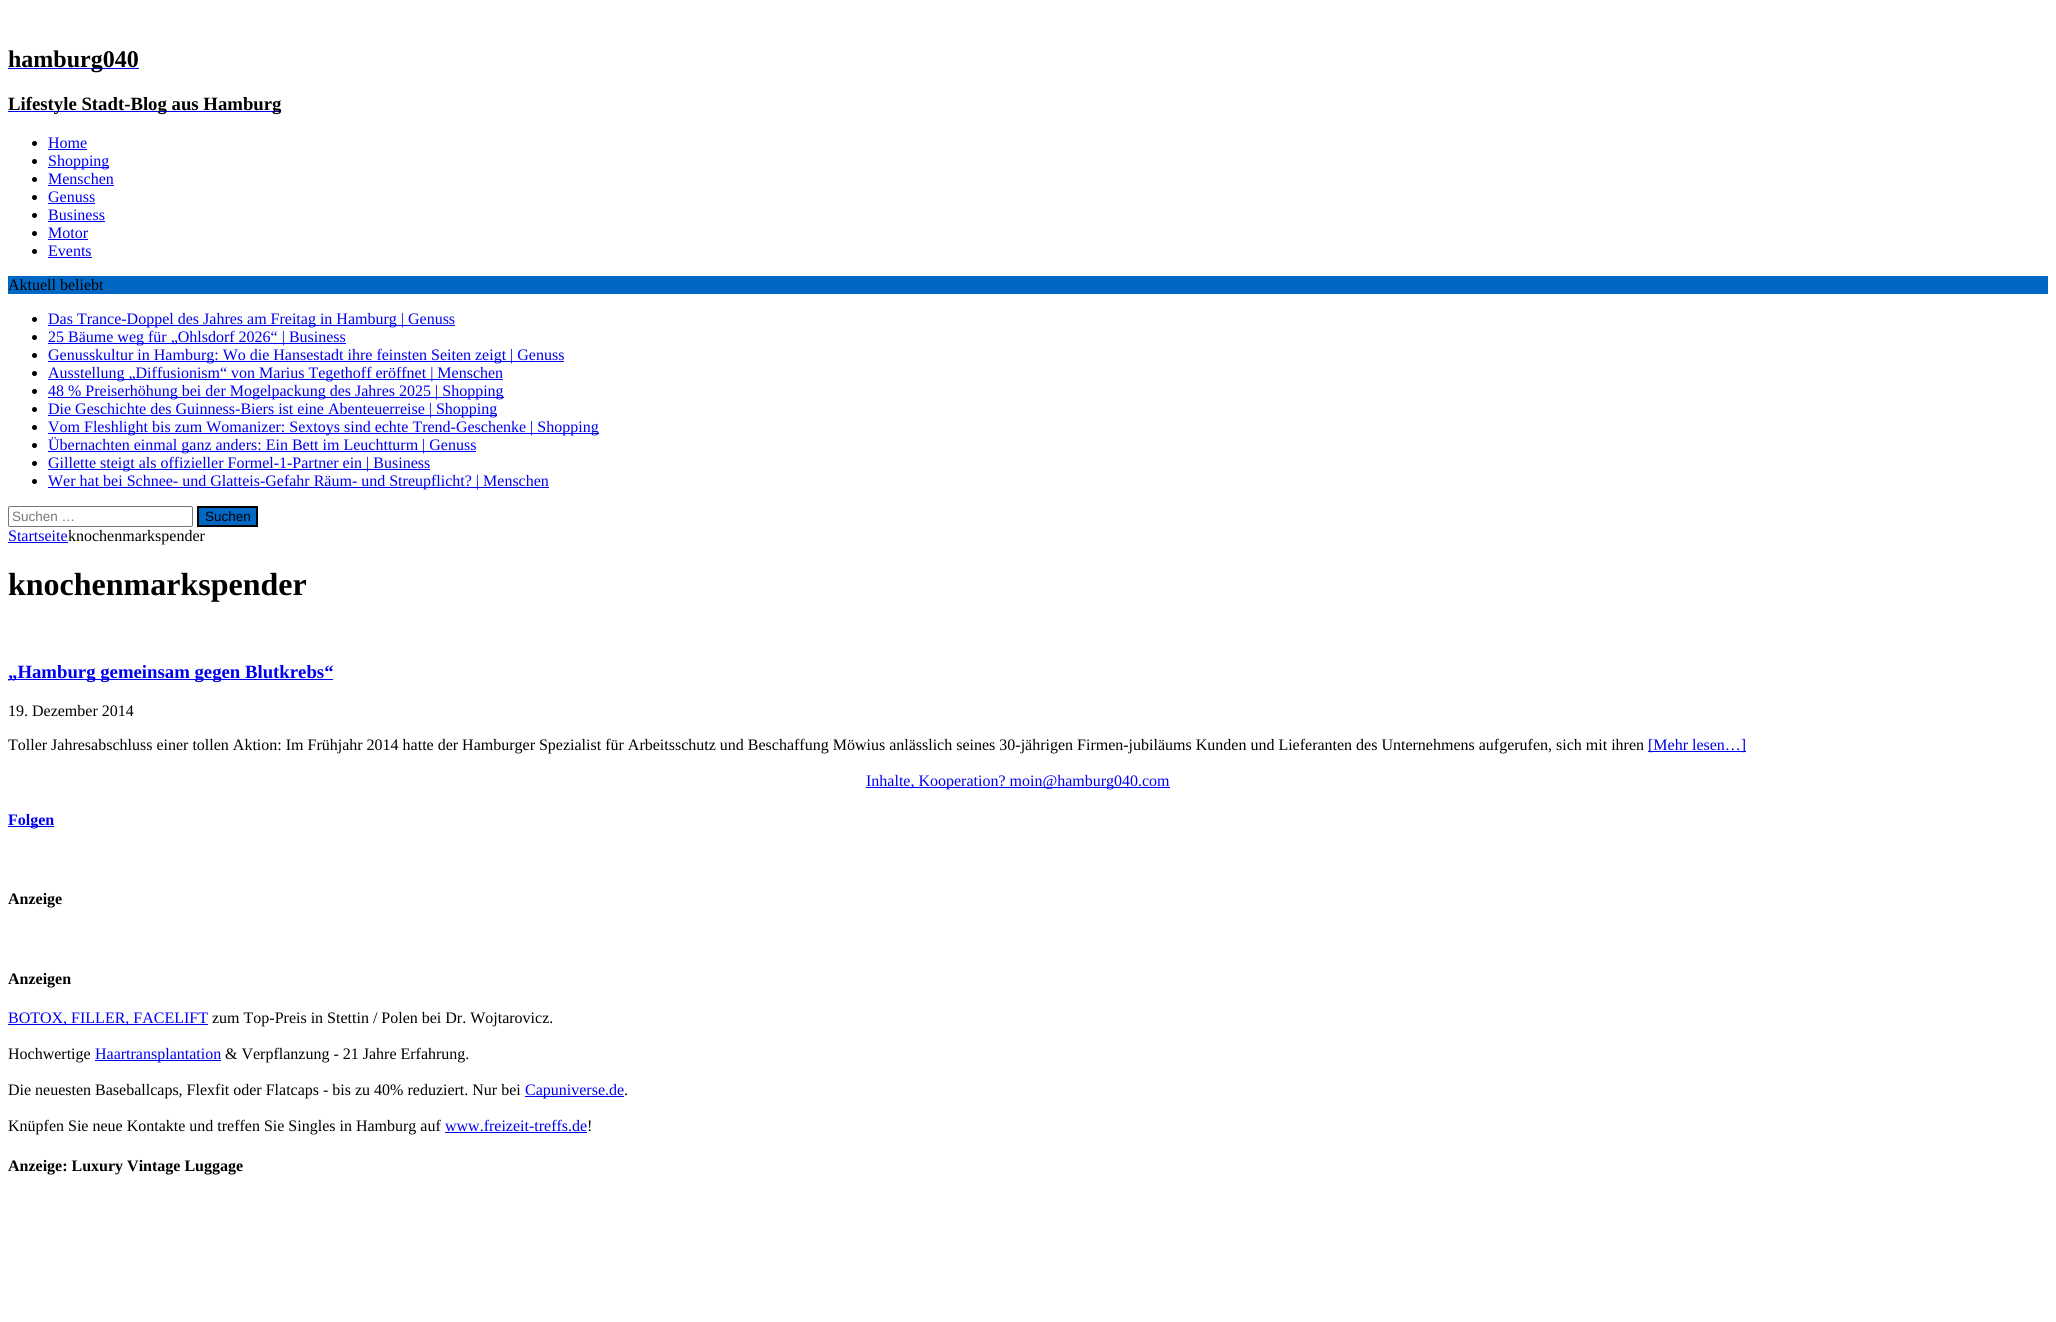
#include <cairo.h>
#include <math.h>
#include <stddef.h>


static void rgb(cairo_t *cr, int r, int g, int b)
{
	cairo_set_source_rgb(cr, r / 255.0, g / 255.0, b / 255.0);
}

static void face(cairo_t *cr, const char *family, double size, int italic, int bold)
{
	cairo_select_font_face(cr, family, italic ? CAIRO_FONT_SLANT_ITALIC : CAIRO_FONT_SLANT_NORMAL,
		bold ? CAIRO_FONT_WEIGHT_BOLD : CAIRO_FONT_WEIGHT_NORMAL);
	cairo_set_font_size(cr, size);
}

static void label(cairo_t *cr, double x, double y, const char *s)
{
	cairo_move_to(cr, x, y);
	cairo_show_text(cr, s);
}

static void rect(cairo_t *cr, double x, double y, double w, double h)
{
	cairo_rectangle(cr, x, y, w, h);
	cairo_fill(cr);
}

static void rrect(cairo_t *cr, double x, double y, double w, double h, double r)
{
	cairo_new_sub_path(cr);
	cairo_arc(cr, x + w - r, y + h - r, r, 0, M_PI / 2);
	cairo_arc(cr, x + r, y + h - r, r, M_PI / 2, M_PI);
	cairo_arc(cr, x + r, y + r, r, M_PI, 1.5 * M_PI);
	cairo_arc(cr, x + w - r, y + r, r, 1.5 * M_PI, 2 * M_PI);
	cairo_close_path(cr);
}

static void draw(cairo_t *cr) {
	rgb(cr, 255, 255, 255);
	cairo_paint(cr);
	rgb(cr, 0, 0, 238);
	rect(cr, 8, 68, 131, 1);
	face(cr, "Liberation Serif", 24, 0, 1);
	rgb(cr, 0, 0, 1);
	label(cr, 8, 67, "hamburg040");
	rgb(cr, 0, 0, 238);
	rect(cr, 8, 111, 273, 1);
	face(cr, "Liberation Serif", 18.75, 0, 1);
	rgb(cr, 0, 0, 1);
	label(cr, 8, 110, "Lifestyle Stadt-Blog aus Hamburg");
	rgb(cr, 0, 0, 0);
	cairo_new_path(cr);
	cairo_arc(cr, 34.5, 143.5, 2.5, 0, 2 * M_PI);
	cairo_fill(cr);
	face(cr, "Liberation Serif", 16, 0, 0);
	rgb(cr, 0, 0, 238);
	label(cr, 48, 148, "Home");
	rect(cr, 48, 149, 39, 1);
	rgb(cr, 0, 0, 0);
	cairo_new_path(cr);
	cairo_arc(cr, 34.5, 161.5, 2.5, 0, 2 * M_PI);
	cairo_fill(cr);
	rgb(cr, 0, 0, 238);
	rect(cr, 48, 167, 61, 1);
	label(cr, 48, 166, "Shopping");
	rgb(cr, 0, 0, 0);
	cairo_new_path(cr);
	cairo_arc(cr, 34.5, 179.5, 2.5, 0, 2 * M_PI);
	cairo_fill(cr);
	rgb(cr, 0, 0, 238);
	label(cr, 48, 184, "Menschen");
	rect(cr, 48, 185, 66, 1);
	rgb(cr, 0, 0, 0);
	cairo_new_path(cr);
	cairo_arc(cr, 34.5, 197.5, 2.5, 0, 2 * M_PI);
	cairo_fill(cr);
	rgb(cr, 0, 0, 238);
	label(cr, 48, 202, "Genuss");
	rect(cr, 48, 203, 47, 1);
	rgb(cr, 0, 0, 0);
	cairo_new_path(cr);
	cairo_arc(cr, 34.5, 215.5, 2.5, 0, 2 * M_PI);
	cairo_fill(cr);
	rgb(cr, 0, 0, 238);
	label(cr, 48, 220, "Business");
	rect(cr, 48, 221, 57, 1);
	rgb(cr, 0, 0, 0);
	cairo_new_path(cr);
	cairo_arc(cr, 34.5, 233.5, 2.5, 0, 2 * M_PI);
	cairo_fill(cr);
	rgb(cr, 0, 0, 238);
	label(cr, 48, 238, "Motor");
	rect(cr, 48, 239, 40, 1);
	rgb(cr, 0, 0, 0);
	cairo_new_path(cr);
	cairo_arc(cr, 34.5, 251.5, 2.5, 0, 2 * M_PI);
	cairo_fill(cr);
	rgb(cr, 0, 0, 238);
	label(cr, 48, 256, "Events");
	rect(cr, 48, 257, 44, 1);
	rgb(cr, 0, 104, 196);
	rect(cr, 8, 276, 2040, 18);
	rgb(cr, 0, 0, 1);
	label(cr, 8, 290, "Aktuell beliebt");
	rgb(cr, 0, 0, 0);
	cairo_new_path(cr);
	cairo_arc(cr, 34.5, 319.5, 2.5, 0, 2 * M_PI);
	cairo_fill(cr);
	rgb(cr, 0, 0, 238);
	rect(cr, 48, 325, 407, 1);
	label(cr, 48, 324, "Das Trance-Doppel des Jahres am Freitag in Hamburg | Genuss");
	rgb(cr, 0, 0, 0);
	cairo_new_path(cr);
	cairo_arc(cr, 34.5, 337.5, 2.5, 0, 2 * M_PI);
	cairo_fill(cr);
	rgb(cr, 0, 0, 238);
	rect(cr, 48, 343, 298, 1);
	label(cr, 48, 342, "25 Bäume weg für „Ohlsdorf 2026“ | Business");
	rgb(cr, 0, 0, 0);
	cairo_new_path(cr);
	cairo_arc(cr, 34.5, 355.5, 2.5, 0, 2 * M_PI);
	cairo_fill(cr);
	rgb(cr, 0, 0, 238);
	rect(cr, 48, 361, 516, 1);
	label(cr, 48, 360, "Genusskultur in Hamburg: Wo die Hansestadt ihre feinsten Seiten zeigt | Genuss");
	rgb(cr, 0, 0, 0);
	cairo_new_path(cr);
	cairo_arc(cr, 34.5, 373.5, 2.5, 0, 2 * M_PI);
	cairo_fill(cr);
	rgb(cr, 0, 0, 238);
	rect(cr, 48, 379, 455, 1);
	label(cr, 48, 378, "Ausstellung „Diffusionism“ von Marius Tegethoff eröffnet | Menschen");
	rgb(cr, 0, 0, 0);
	cairo_new_path(cr);
	cairo_arc(cr, 34.5, 391.5, 2.5, 0, 2 * M_PI);
	cairo_fill(cr);
	rgb(cr, 0, 0, 238);
	rect(cr, 48, 397, 456, 1);
	label(cr, 48, 396, "48 % Preiserhöhung bei der Mogelpackung des Jahres 2025 | Shopping");
	rgb(cr, 0, 0, 0);
	cairo_new_path(cr);
	cairo_arc(cr, 34.5, 409.5, 2.5, 0, 2 * M_PI);
	cairo_fill(cr);
	rgb(cr, 0, 0, 238);
	rect(cr, 48, 415, 449, 1);
	label(cr, 48, 414, "Die Geschichte des Guinness-Biers ist eine Abenteuerreise | Shopping");
	rgb(cr, 0, 0, 0);
	cairo_new_path(cr);
	cairo_arc(cr, 34.5, 427.5, 2.5, 0, 2 * M_PI);
	cairo_fill(cr);
	rgb(cr, 0, 0, 238);
	rect(cr, 48, 433, 551, 1);
	label(cr, 48, 432, "Vom Fleshlight bis zum Womanizer: Sextoys sind echte Trend-Geschenke | Shopping");
	rgb(cr, 0, 0, 0);
	cairo_new_path(cr);
	cairo_arc(cr, 34.5, 445.5, 2.5, 0, 2 * M_PI);
	cairo_fill(cr);
	rgb(cr, 0, 0, 238);
	rect(cr, 48, 451, 428, 1);
	label(cr, 48, 450, "Übernachten einmal ganz anders: Ein Bett im Leuchtturm | Genuss");
	rgb(cr, 0, 0, 0);
	cairo_new_path(cr);
	cairo_arc(cr, 34.5, 463.5, 2.5, 0, 2 * M_PI);
	cairo_fill(cr);
	rgb(cr, 0, 0, 238);
	rect(cr, 48, 469, 382, 1);
	label(cr, 48, 468, "Gillette steigt als offizieller Formel-1-Partner ein | Business");
	rgb(cr, 0, 0, 0);
	cairo_new_path(cr);
	cairo_arc(cr, 34.5, 481.5, 2.5, 0, 2 * M_PI);
	cairo_fill(cr);
	rgb(cr, 0, 0, 238);
	rect(cr, 48, 487, 501, 1);
	label(cr, 48, 486, "Wer hat bei Schnee- und Glatteis-Gefahr Räum- und Streupflicht? | Menschen");
	rrect(cr, 8.5, 506.5, 184, 20, 1.5);
	rgb(cr, 118, 118, 118);
	cairo_set_line_width(cr, 1);
	cairo_stroke(cr);
	face(cr, "Liberation Sans", 13.5, 0, 0);
	rgb(cr, 117, 117, 117);
	label(cr, 12, 521, "Suchen …");
	rgb(cr, 0, 104, 196);
	cairo_rectangle(cr, 198, 507, 59, 19);
	cairo_fill_preserve(cr);
	rgb(cr, 0, 0, 0);
	cairo_set_line_width(cr, 2);
	cairo_stroke(cr);
	rgb(cr, 0, 0, 1);
	label(cr, 205, 521, "Suchen");
	face(cr, "Liberation Serif", 16, 0, 0);
	rgb(cr, 0, 0, 238);
	label(cr, 8, 541, "Startseite");
	rect(cr, 8, 542, 60, 1);
	rgb(cr, 0, 0, 1);
	label(cr, 68, 541, "knochenmarkspender");
	face(cr, "Liberation Serif", 32, 0, 1);
	label(cr, 8, 595, "knochenmarkspender");
	rgb(cr, 0, 0, 238);
	rect(cr, 8, 679, 325, 1);
	face(cr, "Liberation Serif", 18.75, 0, 1);
	label(cr, 8, 678, "„Hamburg gemeinsam gegen Blutkrebs“");
	face(cr, "Liberation Serif", 16, 0, 0);
	rgb(cr, 0, 0, 1);
	label(cr, 8, 716, "19. Dezember 2014");
	label(cr, 8, 750, "Toller Jahresabschluss einer tollen Aktion: Im Frühjahr 2014 hatte der Hamburger Spezialist für Arbeitsschutz und Beschaffung Möwius anlässlich seines 30-jährigen Firmen-jubiläums Kunden und Lieferanten des Unternehmens aufgerufen, sich mit ihren");
	rgb(cr, 0, 0, 238);
	rect(cr, 1648, 751, 98, 1);
	label(cr, 1648, 750, "[Mehr lesen…]");
	rect(cr, 866, 787, 304, 1);
	label(cr, 866, 786, "Inhalte, Kooperation? moin@hamburg040.com");
	rect(cr, 8, 826, 46, 1);
	face(cr, "Liberation Serif", 16, 0, 1);
	label(cr, 8, 825, "Folgen");
	rgb(cr, 0, 0, 1);
	label(cr, 8, 904, "Anzeige");
	label(cr, 8, 984, "Anzeigen");
	rgb(cr, 0, 0, 238);
	rect(cr, 8, 1024, 200, 1);
	face(cr, "Liberation Serif", 16, 0, 0);
	label(cr, 8, 1023, "BOTOX, FILLER, FACELIFT");
	rgb(cr, 0, 0, 1);
	label(cr, 212, 1023, "zum Top-Preis in Stettin / Polen bei Dr. Wojtarovicz.");
	label(cr, 8, 1059, "Hochwertige");
	rgb(cr, 0, 0, 238);
	rect(cr, 95, 1060, 126, 1);
	label(cr, 95, 1059, "Haartransplantation");
	rgb(cr, 0, 0, 1);
	label(cr, 225, 1059, "& Verpflanzung - 21 Jahre Erfahrung.");
	label(cr, 8, 1095, "Die neuesten Baseballcaps, Flexfit oder Flatcaps - bis zu 40% reduziert. Nur bei");
	rgb(cr, 0, 0, 238);
	rect(cr, 525, 1096, 99, 1);
	label(cr, 525, 1095, "Capuniverse.de");
	rgb(cr, 0, 0, 1);
	label(cr, 624, 1095, ".");
	label(cr, 8, 1131, "Knüpfen Sie neue Kontakte und treffen Sie Singles in Hamburg auf");
	rgb(cr, 0, 0, 238);
	label(cr, 445, 1131, "www.freizeit-treffs.de");
	rect(cr, 445, 1132, 142, 1);
	rgb(cr, 0, 0, 1);
	label(cr, 587, 1131, "!");
	face(cr, "Liberation Serif", 16, 0, 1);
	label(cr, 8, 1171, "Anzeige: Luxury Vintage Luggage");
}

int main(void) {
	cairo_surface_t *surface = cairo_image_surface_create(CAIRO_FORMAT_RGB24, 2056, 1322);
	cairo_t *cr = cairo_create(surface);
	cairo_font_options_t *options = cairo_font_options_create();
	cairo_font_options_set_hint_metrics(options, CAIRO_HINT_METRICS_OFF);
	cairo_font_options_set_hint_style(options, CAIRO_HINT_STYLE_NONE);
	cairo_set_font_options(cr, options);
	cairo_set_miter_limit(cr, 4);
	draw(cr);
	cairo_surface_write_to_png(surface, "render.png");
	cairo_font_options_destroy(options);
	cairo_destroy(cr);
	cairo_surface_destroy(surface);
	return 0;
}
